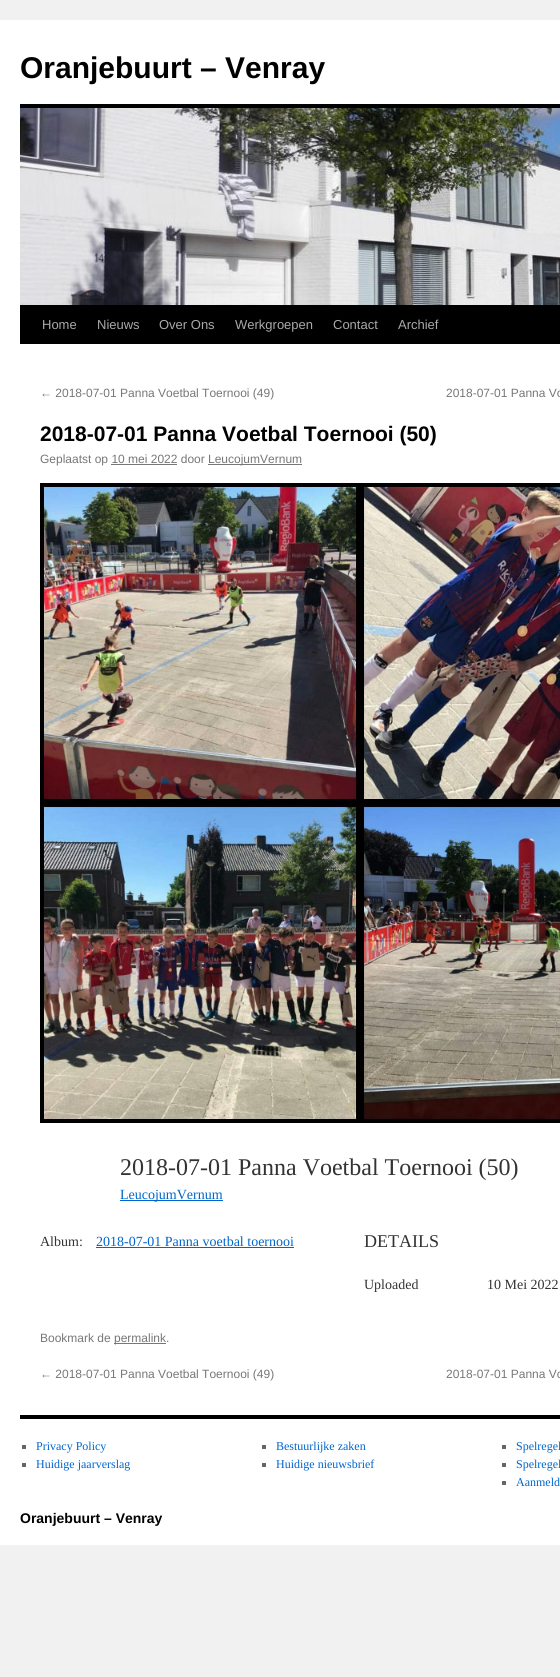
#include <cairo.h>
#include <math.h>
#include <stddef.h>


static void rgb(cairo_t *cr, int r, int g, int b)
{
	cairo_set_source_rgb(cr, r / 255.0, g / 255.0, b / 255.0);
}

static void face(cairo_t *cr, const char *family, double size, int italic, int bold)
{
	cairo_select_font_face(cr, family, italic ? CAIRO_FONT_SLANT_ITALIC : CAIRO_FONT_SLANT_NORMAL,
		bold ? CAIRO_FONT_WEIGHT_BOLD : CAIRO_FONT_WEIGHT_NORMAL);
	cairo_set_font_size(cr, size);
}

static void label(cairo_t *cr, double x, double y, const char *s)
{
	cairo_move_to(cr, x, y);
	cairo_show_text(cr, s);
}

static void rect(cairo_t *cr, double x, double y, double w, double h)
{
	cairo_rectangle(cr, x, y, w, h);
	cairo_fill(cr);
}

static void image(cairo_t *cr, const char *path, double x, double y, double w, double h)
{
	cairo_surface_t *image = cairo_image_surface_create_from_png(path);
	cairo_save(cr);
	cairo_set_source_surface(cr, image, x, y);
	cairo_rectangle(cr, x, y, w, h);
	cairo_fill(cr);
	cairo_restore(cr);
	cairo_surface_destroy(image);
}

static void draw(cairo_t *cr) {
	rgb(cr, 241, 241, 241);
	cairo_paint(cr);
	rgb(cr, 255, 255, 255);
	rect(cr, 0, 20, 560, 1525);
	face(cr, "Liberation Sans", 30, 0, 1);
	rgb(cr, 0, 0, 0);
	label(cr, 20, 78, "Oranjebuurt – Venray");
	rect(cr, 20, 104, 540, 4);
	rect(cr, 20, 305, 540, 39);
	image(cr, "image0.png", 20, 108, 540, 197);
	face(cr, "Liberation Sans", 13, 0, 0);
	rgb(cr, 170, 170, 170);
	label(cr, 42, 329, "Home");
	label(cr, 97, 329, "Nieuws");
	label(cr, 159, 329, "Over Ons");
	label(cr, 235, 329, "Werkgroepen");
	label(cr, 333, 329, "Contact");
	label(cr, 398, 329, "Archief");
	face(cr, "Liberation Sans", 12, 0, 0);
	rgb(cr, 119, 119, 119);
	label(cr, 40, 397, "← 2018-07-01 Panna Voetbal Toernooi (49)");
	label(cr, 446, 397, "2018-07-01 Panna Vo");
	face(cr, "Liberation Sans", 21, 0, 1);
	rgb(cr, 0, 0, 0);
	label(cr, 40, 441, "2018-07-01 Panna Voetbal Toernooi (50)");
	face(cr, "Liberation Sans", 12, 0, 0);
	rgb(cr, 119, 119, 119);
	label(cr, 40, 463, "Geplaatst op 10 mei 2022 door");
	rect(cr, 208, 464, 94, 1);
	label(cr, 208, 463, "LeucojumVernum");
	rect(cr, 111, 464, 66, 1);
	image(cr, "image1.png", 40, 483, 520, 640);
	face(cr, "Liberation Serif", 24, 0, 0);
	rgb(cr, 51, 51, 51);
	label(cr, 120, 1175, "2018-07-01 Panna Voetbal Toernooi (50)");
	rgb(cr, 0, 102, 204);
	rect(cr, 120, 1200, 103, 1);
	face(cr, "Liberation Serif", 14, 0, 0);
	label(cr, 120, 1199, "LeucojumVernum");
	rgb(cr, 51, 51, 51);
	label(cr, 40, 1246, "Album:");
	rgb(cr, 0, 102, 204);
	label(cr, 96, 1246, "2018-07-01 Panna voetbal toernooi");
	rect(cr, 96, 1247, 198, 1);
	face(cr, "Liberation Serif", 18, 0, 0);
	rgb(cr, 51, 51, 51);
	label(cr, 364, 1247, "DETAILS");
	face(cr, "Liberation Serif", 14, 0, 0);
	label(cr, 364, 1289, "Uploaded");
	label(cr, 487, 1289, "10 Mei 2022");
	face(cr, "Liberation Sans", 12, 0, 0);
	rgb(cr, 119, 119, 119);
	label(cr, 40, 1342, "Bookmark de");
	rect(cr, 114, 1343, 52, 1);
	label(cr, 114, 1342, "permalink.");
	label(cr, 40, 1378, "← 2018-07-01 Panna Voetbal Toernooi (49)");
	label(cr, 446, 1378, "2018-07-01 Panna Vo");
	rgb(cr, 0, 0, 0);
	rect(cr, 20, 1415, 540, 4);
	rgb(cr, 102, 102, 102);
	rect(cr, 22, 1445, 4, 4);
	face(cr, "Liberation Serif", 12, 0, 0);
	rgb(cr, 0, 102, 204);
	label(cr, 36, 1450, "Privacy Policy");
	rgb(cr, 102, 102, 102);
	rect(cr, 22, 1463, 4, 4);
	rgb(cr, 0, 102, 204);
	label(cr, 36, 1468, "Huidige jaarverslag");
	rgb(cr, 102, 102, 102);
	rect(cr, 262, 1445, 4, 4);
	rgb(cr, 0, 102, 204);
	label(cr, 276, 1450, "Bestuurlijke zaken");
	rgb(cr, 102, 102, 102);
	rect(cr, 262, 1463, 4, 4);
	rgb(cr, 0, 102, 204);
	label(cr, 276, 1468, "Huidige nieuwsbrief");
	rgb(cr, 102, 102, 102);
	rect(cr, 502, 1445, 4, 4);
	rgb(cr, 0, 102, 204);
	label(cr, 516, 1450, "Spelregel");
	rgb(cr, 102, 102, 102);
	rect(cr, 502, 1463, 4, 4);
	rgb(cr, 0, 102, 204);
	label(cr, 516, 1468, "Spelregel");
	rgb(cr, 102, 102, 102);
	rect(cr, 502, 1481, 4, 4);
	rgb(cr, 0, 102, 204);
	label(cr, 516, 1486, "Aanmeld");
	face(cr, "Liberation Sans", 14, 0, 1);
	rgb(cr, 0, 0, 0);
	label(cr, 20, 1523, "Oranjebuurt – Venray");
}

int main(void) {
	cairo_surface_t *surface = cairo_image_surface_create(CAIRO_FORMAT_RGB24, 560, 1677);
	cairo_t *cr = cairo_create(surface);
	cairo_font_options_t *options = cairo_font_options_create();
	cairo_font_options_set_hint_metrics(options, CAIRO_HINT_METRICS_OFF);
	cairo_font_options_set_hint_style(options, CAIRO_HINT_STYLE_NONE);
	cairo_set_font_options(cr, options);
	cairo_set_miter_limit(cr, 4);
	draw(cr);
	cairo_surface_write_to_png(surface, "render.png");
	cairo_font_options_destroy(options);
	cairo_destroy(cr);
	cairo_surface_destroy(surface);
	return 0;
}
